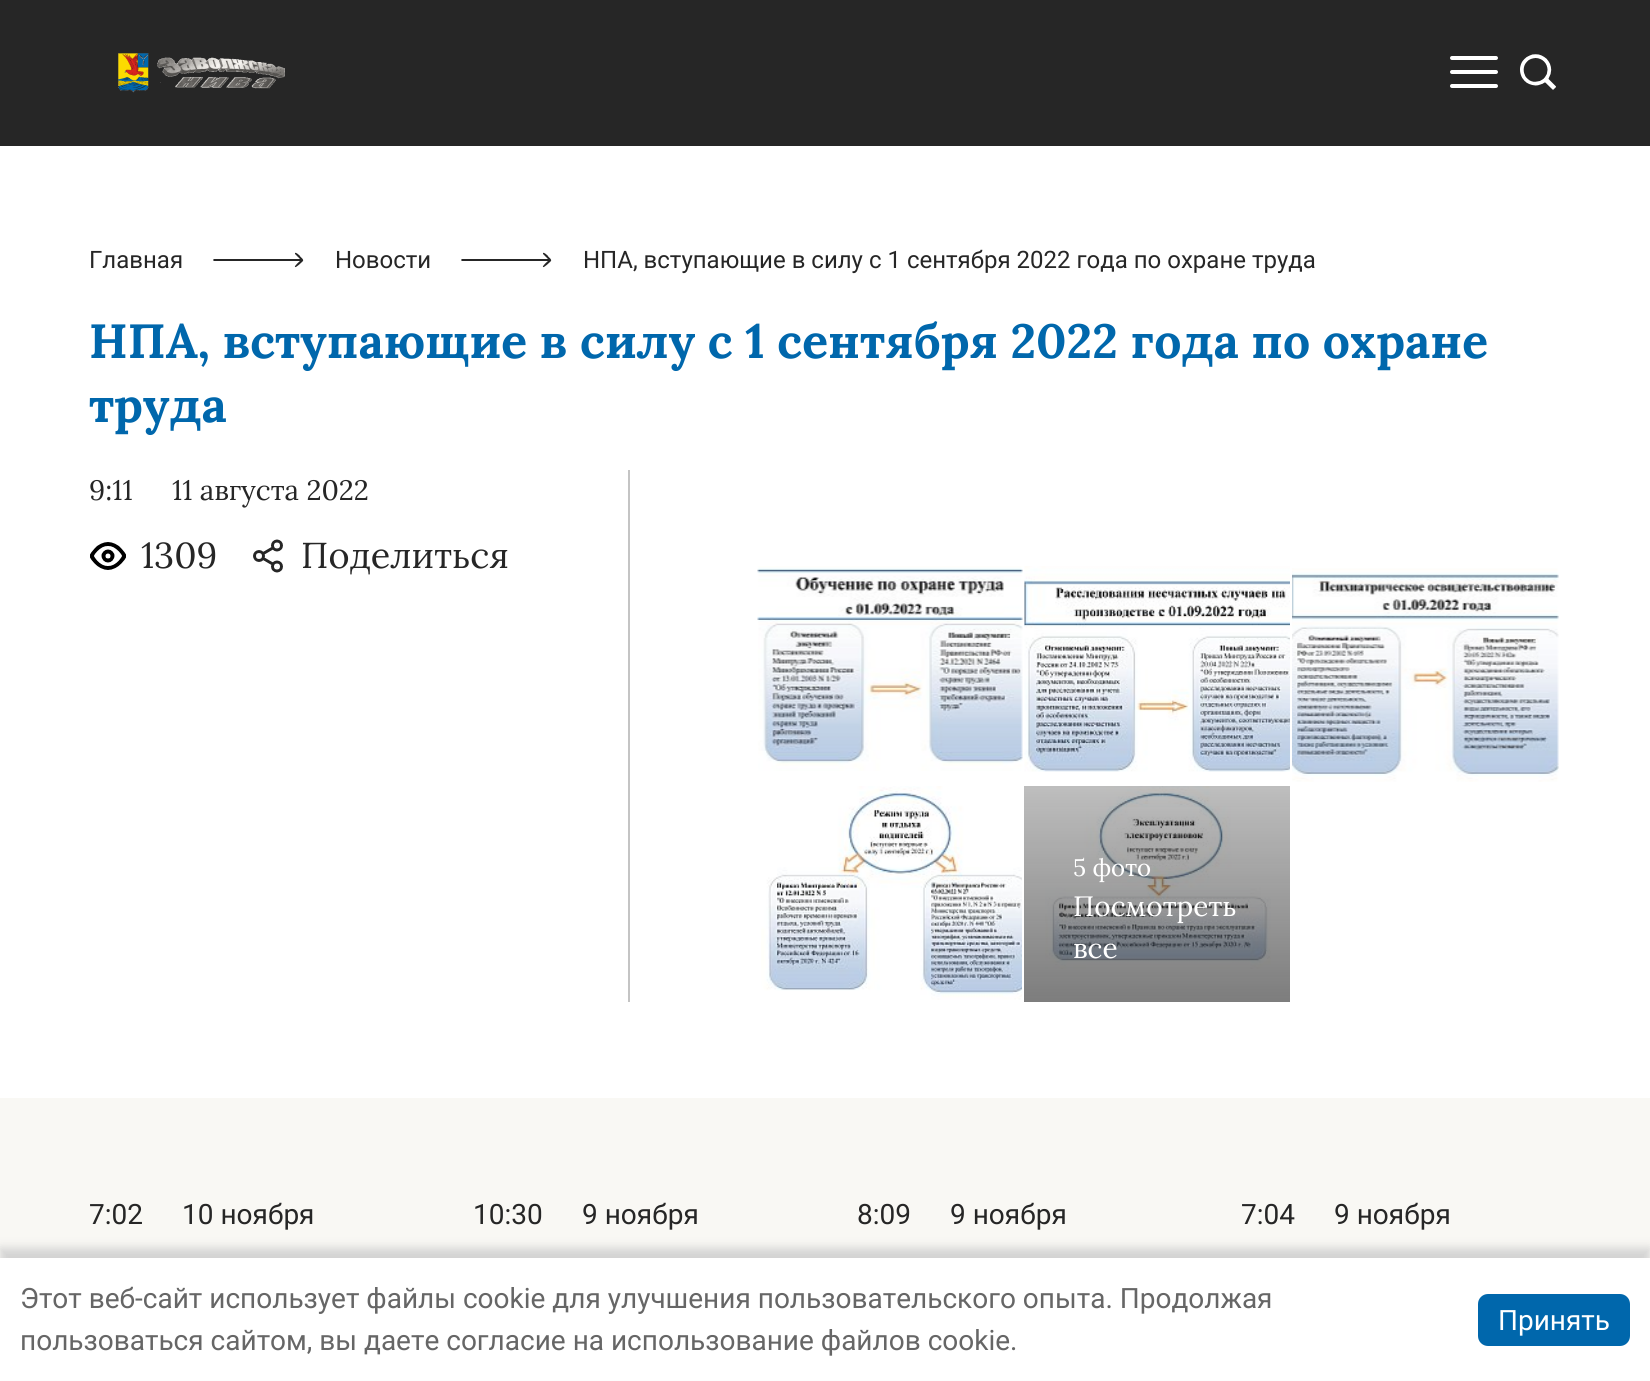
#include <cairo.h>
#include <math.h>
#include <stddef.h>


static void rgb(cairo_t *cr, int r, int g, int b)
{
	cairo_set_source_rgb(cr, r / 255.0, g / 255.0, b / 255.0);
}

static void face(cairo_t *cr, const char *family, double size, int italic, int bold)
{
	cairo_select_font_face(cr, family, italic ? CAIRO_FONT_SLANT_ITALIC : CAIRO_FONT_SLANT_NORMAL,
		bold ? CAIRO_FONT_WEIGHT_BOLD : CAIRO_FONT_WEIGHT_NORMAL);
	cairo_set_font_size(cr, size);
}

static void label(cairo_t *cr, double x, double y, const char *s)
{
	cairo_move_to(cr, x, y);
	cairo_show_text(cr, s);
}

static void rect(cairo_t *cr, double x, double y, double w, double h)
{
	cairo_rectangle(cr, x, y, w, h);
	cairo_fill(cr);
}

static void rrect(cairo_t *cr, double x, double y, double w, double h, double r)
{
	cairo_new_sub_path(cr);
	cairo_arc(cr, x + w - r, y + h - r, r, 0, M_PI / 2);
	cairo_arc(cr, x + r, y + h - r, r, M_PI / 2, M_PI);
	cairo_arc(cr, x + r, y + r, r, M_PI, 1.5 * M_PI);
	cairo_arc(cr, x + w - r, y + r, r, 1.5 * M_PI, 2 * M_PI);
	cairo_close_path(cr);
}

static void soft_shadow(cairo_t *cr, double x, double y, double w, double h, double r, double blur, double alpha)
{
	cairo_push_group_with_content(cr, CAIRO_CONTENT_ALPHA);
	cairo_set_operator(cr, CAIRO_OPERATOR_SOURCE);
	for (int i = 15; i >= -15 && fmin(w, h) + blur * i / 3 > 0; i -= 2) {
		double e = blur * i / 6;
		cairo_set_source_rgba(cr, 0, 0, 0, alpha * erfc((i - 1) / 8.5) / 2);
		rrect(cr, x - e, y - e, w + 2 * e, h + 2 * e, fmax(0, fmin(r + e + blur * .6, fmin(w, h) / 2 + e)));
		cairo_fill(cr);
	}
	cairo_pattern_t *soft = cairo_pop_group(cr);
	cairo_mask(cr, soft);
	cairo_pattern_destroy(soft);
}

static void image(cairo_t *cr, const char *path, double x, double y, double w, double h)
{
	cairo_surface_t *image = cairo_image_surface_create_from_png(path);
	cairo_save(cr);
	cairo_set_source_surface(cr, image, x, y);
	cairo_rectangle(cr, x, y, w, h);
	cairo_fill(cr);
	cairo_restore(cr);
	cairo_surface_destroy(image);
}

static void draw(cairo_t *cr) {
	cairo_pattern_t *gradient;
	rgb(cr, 255, 255, 255);
	cairo_paint(cr);
	rgb(cr, 38, 38, 38);
	rect(cr, 0, 0, 1650, 146);
	image(cr, "image0.png", 118, 53, 167, 40);
	rgb(cr, 255, 255, 255);
	rrect(cr, 1450, 56, 48, 4, 2);
	cairo_fill(cr);
	rrect(cr, 1450, 70, 48, 4, 2);
	cairo_fill(cr);
	rrect(cr, 1450, 84, 48, 4, 2);
	cairo_fill(cr);
	image(cr, "image1.png", 1520, 54, 36, 36);
	face(cr, "Roboto", 24, 0, 0);
	rgb(cr, 38, 38, 38);
	label(cr, 89, 268, "Главная");
	cairo_new_path(cr);
	cairo_move_to(cr, 214, 259);
	cairo_curve_to(cr, 213, 259, 213, 261, 214, 261);
	cairo_close_path(cr);
	cairo_move_to(cr, 303, 261);
	cairo_curve_to(cr, 304, 259, 300, 257, 300, 256);
	cairo_curve_to(cr, 299, 255, 296, 252, 295, 253);
	cairo_line_to(cr, 295, 254);
	cairo_line_to(cr, 301, 260);
	cairo_curve_to(cr, 300, 261, 294, 266, 295, 267);
	cairo_curve_to(cr, 296, 268, 302, 262, 303, 261);
	cairo_close_path(cr);
	cairo_move_to(cr, 214, 261);
	cairo_line_to(cr, 302, 261);
	cairo_line_to(cr, 302, 259);
	cairo_line_to(cr, 214, 259);
	cairo_close_path(cr);
	cairo_fill(cr);
	label(cr, 335, 268, "Новости");
	cairo_new_path(cr);
	cairo_move_to(cr, 462, 259);
	cairo_curve_to(cr, 461, 259, 461, 261, 462, 261);
	cairo_close_path(cr);
	cairo_move_to(cr, 551, 261);
	cairo_curve_to(cr, 552, 259, 548, 257, 548, 256);
	cairo_curve_to(cr, 547, 255, 544, 252, 543, 253);
	cairo_line_to(cr, 543, 254);
	cairo_line_to(cr, 549, 260);
	cairo_curve_to(cr, 548, 261, 542, 266, 543, 267);
	cairo_curve_to(cr, 544, 268, 550, 262, 551, 261);
	cairo_close_path(cr);
	cairo_move_to(cr, 462, 261);
	cairo_line_to(cr, 550, 261);
	cairo_line_to(cr, 550, 259);
	cairo_line_to(cr, 462, 259);
	cairo_close_path(cr);
	cairo_fill(cr);
	label(cr, 583, 268, "НПА, вступающие в силу с 1 сентября 2022 года по охране труда");
	face(cr, "Lora", 48, 0, 1);
	rgb(cr, 0, 103, 172);
	label(cr, 89, 358, "НПА, вступающие в силу с 1 сентября 2022 года по охране");
	label(cr, 89, 422, "труда");
	rgb(cr, 196, 196, 196);
	rect(cr, 628, 470, 2, 532);
	face(cr, "Lora", 28, 0, 0);
	rgb(cr, 38, 38, 38);
	label(cr, 89, 500, "9:11");
	label(cr, 172, 500, "11 августа 2022");
	image(cr, "image2.png", 90, 542, 36, 28);
	face(cr, "Lora", 36, 0, 0);
	label(cr, 141, 568, "1309");
	image(cr, "image3.png", 253, 539, 30, 34);
	label(cr, 301, 568, "Поделиться");
	image(cr, "image4.png", 757, 566, 266, 205);
	image(cr, "image5.png", 1024, 566, 266, 206);
	image(cr, "image6.png", 1292, 568, 267, 214);
	image(cr, "image7.png", 761, 786, 261, 214);
	image(cr, "image8.png", 1045, 786, 226, 183);
	gradient = cairo_pattern_create_linear(1157, 786, 1157, 1002);
	cairo_pattern_add_color_stop_rgba(gradient, 0, 0.149, 0.149, 0.149, 0.3);
	cairo_pattern_add_color_stop_rgba(gradient, 1, 0.149, 0.149, 0.149, 0.6);
	cairo_set_source(cr, gradient);
	cairo_pattern_destroy(gradient);
	rect(cr, 1024, 786, 266, 216);
	face(cr, "Lora", 24, 0, 0);
	rgb(cr, 255, 255, 255);
	label(cr, 1073, 876, "5 фото");
	face(cr, "Lora", 28, 0, 0);
	label(cr, 1073, 916, "Посмотреть");
	label(cr, 1073, 958, "все");
	rgb(cr, 249, 248, 244);
	rect(cr, 0, 1098, 1650, 160);
	face(cr, "Roboto", 28, 0, 0);
	rgb(cr, 38, 38, 38);
	label(cr, 89, 1224, "7:02");
	label(cr, 182, 1224, "10 ноября");
	label(cr, 473, 1224, "10:30");
	label(cr, 582, 1224, "9 ноября");
	label(cr, 857, 1224, "8:09");
	label(cr, 950, 1224, "9 ноября");
	label(cr, 1241, 1224, "7:04");
	label(cr, 1334, 1224, "9 ноября");
	rgb(cr, 210, 210, 210);
	soft_shadow(cr, 0, 1248, 1650, 124, 0, 5, 1);
	rgb(cr, 255, 255, 255);
	rect(cr, 0, 1258, 1650, 122);
	rgb(cr, 102, 102, 102);
	label(cr, 20, 1308, "Этот веб-сайт использует файлы cookie для улучшения пользовательского опыта. Продолжая");
	label(cr, 20, 1350, "пользоваться сайтом, вы даете согласие на использование файлов cookie.");
	rgb(cr, 0, 103, 172);
	rrect(cr, 1478, 1294, 152, 52, 10);
	cairo_fill(cr);
	rgb(cr, 255, 255, 255);
	label(cr, 1498, 1330, "Принять");
}

int main(void) {
	cairo_surface_t *surface = cairo_image_surface_create(CAIRO_FORMAT_RGB24, 1650, 1381);
	cairo_t *cr = cairo_create(surface);
	cairo_font_options_t *options = cairo_font_options_create();
	cairo_font_options_set_hint_metrics(options, CAIRO_HINT_METRICS_OFF);
	cairo_font_options_set_hint_style(options, CAIRO_HINT_STYLE_NONE);
	cairo_set_font_options(cr, options);
	cairo_set_miter_limit(cr, 4);
	draw(cr);
	cairo_surface_write_to_png(surface, "render.png");
	cairo_font_options_destroy(options);
	cairo_destroy(cr);
	cairo_surface_destroy(surface);
	return 0;
}
